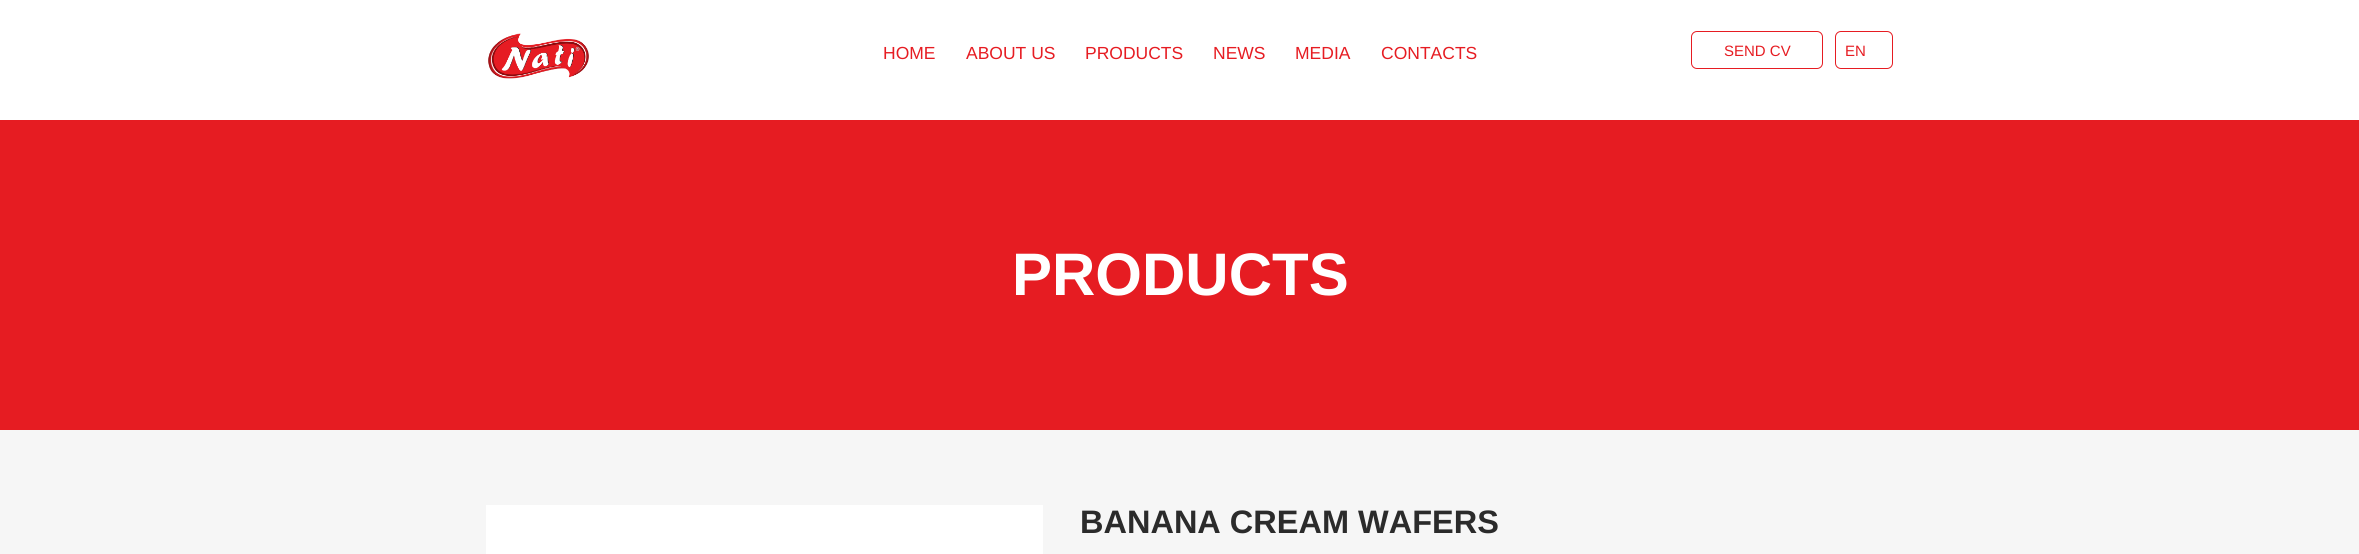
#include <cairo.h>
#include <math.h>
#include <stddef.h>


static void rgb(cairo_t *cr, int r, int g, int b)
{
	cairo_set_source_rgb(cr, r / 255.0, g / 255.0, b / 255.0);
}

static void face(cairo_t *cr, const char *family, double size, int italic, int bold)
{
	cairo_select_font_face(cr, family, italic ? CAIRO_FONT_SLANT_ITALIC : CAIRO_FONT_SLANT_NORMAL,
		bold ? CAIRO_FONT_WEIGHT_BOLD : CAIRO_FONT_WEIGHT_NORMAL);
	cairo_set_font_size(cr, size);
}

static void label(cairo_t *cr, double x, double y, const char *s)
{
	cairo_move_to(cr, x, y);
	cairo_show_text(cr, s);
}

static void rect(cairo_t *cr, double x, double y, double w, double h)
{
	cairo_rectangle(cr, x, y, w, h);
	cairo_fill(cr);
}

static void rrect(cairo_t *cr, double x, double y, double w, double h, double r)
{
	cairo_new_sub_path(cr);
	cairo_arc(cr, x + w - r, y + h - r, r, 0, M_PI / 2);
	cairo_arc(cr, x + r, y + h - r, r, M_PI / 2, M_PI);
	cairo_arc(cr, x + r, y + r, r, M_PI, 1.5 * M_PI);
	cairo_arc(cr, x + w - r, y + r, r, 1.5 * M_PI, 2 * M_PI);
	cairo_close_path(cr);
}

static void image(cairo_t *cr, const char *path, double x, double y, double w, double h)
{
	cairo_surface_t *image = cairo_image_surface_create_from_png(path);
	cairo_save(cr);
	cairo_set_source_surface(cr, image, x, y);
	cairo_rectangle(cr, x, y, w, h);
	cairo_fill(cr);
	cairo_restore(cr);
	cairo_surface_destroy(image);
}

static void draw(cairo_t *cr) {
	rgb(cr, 255, 255, 255);
	cairo_paint(cr);
	image(cr, "image0.png", 488, 33, 101, 46);
	face(cr, "Liberation Sans", 17.5, 0, 0);
	rgb(cr, 230, 28, 34);
	label(cr, 883, 59, "HOME");
	label(cr, 966, 59, "ABOUT US");
	label(cr, 1085, 59, "PRODUCTS");
	label(cr, 1213, 59, "NEWS");
	label(cr, 1295, 59, "MEDIA");
	label(cr, 1381, 59, "CONTACTS");
	rrect(cr, 1691.5, 31.5, 131, 37, 5.5);
	cairo_set_line_width(cr, 1);
	cairo_stroke(cr);
	face(cr, "Liberation Sans", 15, 0, 0);
	label(cr, 1724, 56, "SEND CV");
	rrect(cr, 1835.5, 31.5, 57, 37, 5.5);
	cairo_stroke(cr);
	label(cr, 1845, 56, "EN");
	rect(cr, 0, 120, 2359, 310);
	face(cr, "Liberation Sans", 60, 0, 1);
	rgb(cr, 255, 255, 255);
	label(cr, 1012, 295, "PRODUCTS");
	rgb(cr, 246, 246, 246);
	rect(cr, 0, 430, 2359, 124);
	rgb(cr, 255, 255, 255);
	rect(cr, 486, 505, 557, 49);
	face(cr, "Liberation Sans", 32.5, 0, 1);
	rgb(cr, 43, 43, 43);
	label(cr, 1080, 533, "BANANA CREAM WAFERS");
}

int main(void) {
	cairo_surface_t *surface = cairo_image_surface_create(CAIRO_FORMAT_RGB24, 2359, 554);
	cairo_t *cr = cairo_create(surface);
	cairo_font_options_t *options = cairo_font_options_create();
	cairo_font_options_set_hint_metrics(options, CAIRO_HINT_METRICS_OFF);
	cairo_font_options_set_hint_style(options, CAIRO_HINT_STYLE_NONE);
	cairo_set_font_options(cr, options);
	cairo_set_miter_limit(cr, 4);
	draw(cr);
	cairo_surface_write_to_png(surface, "render.png");
	cairo_font_options_destroy(options);
	cairo_destroy(cr);
	cairo_surface_destroy(surface);
	return 0;
}
